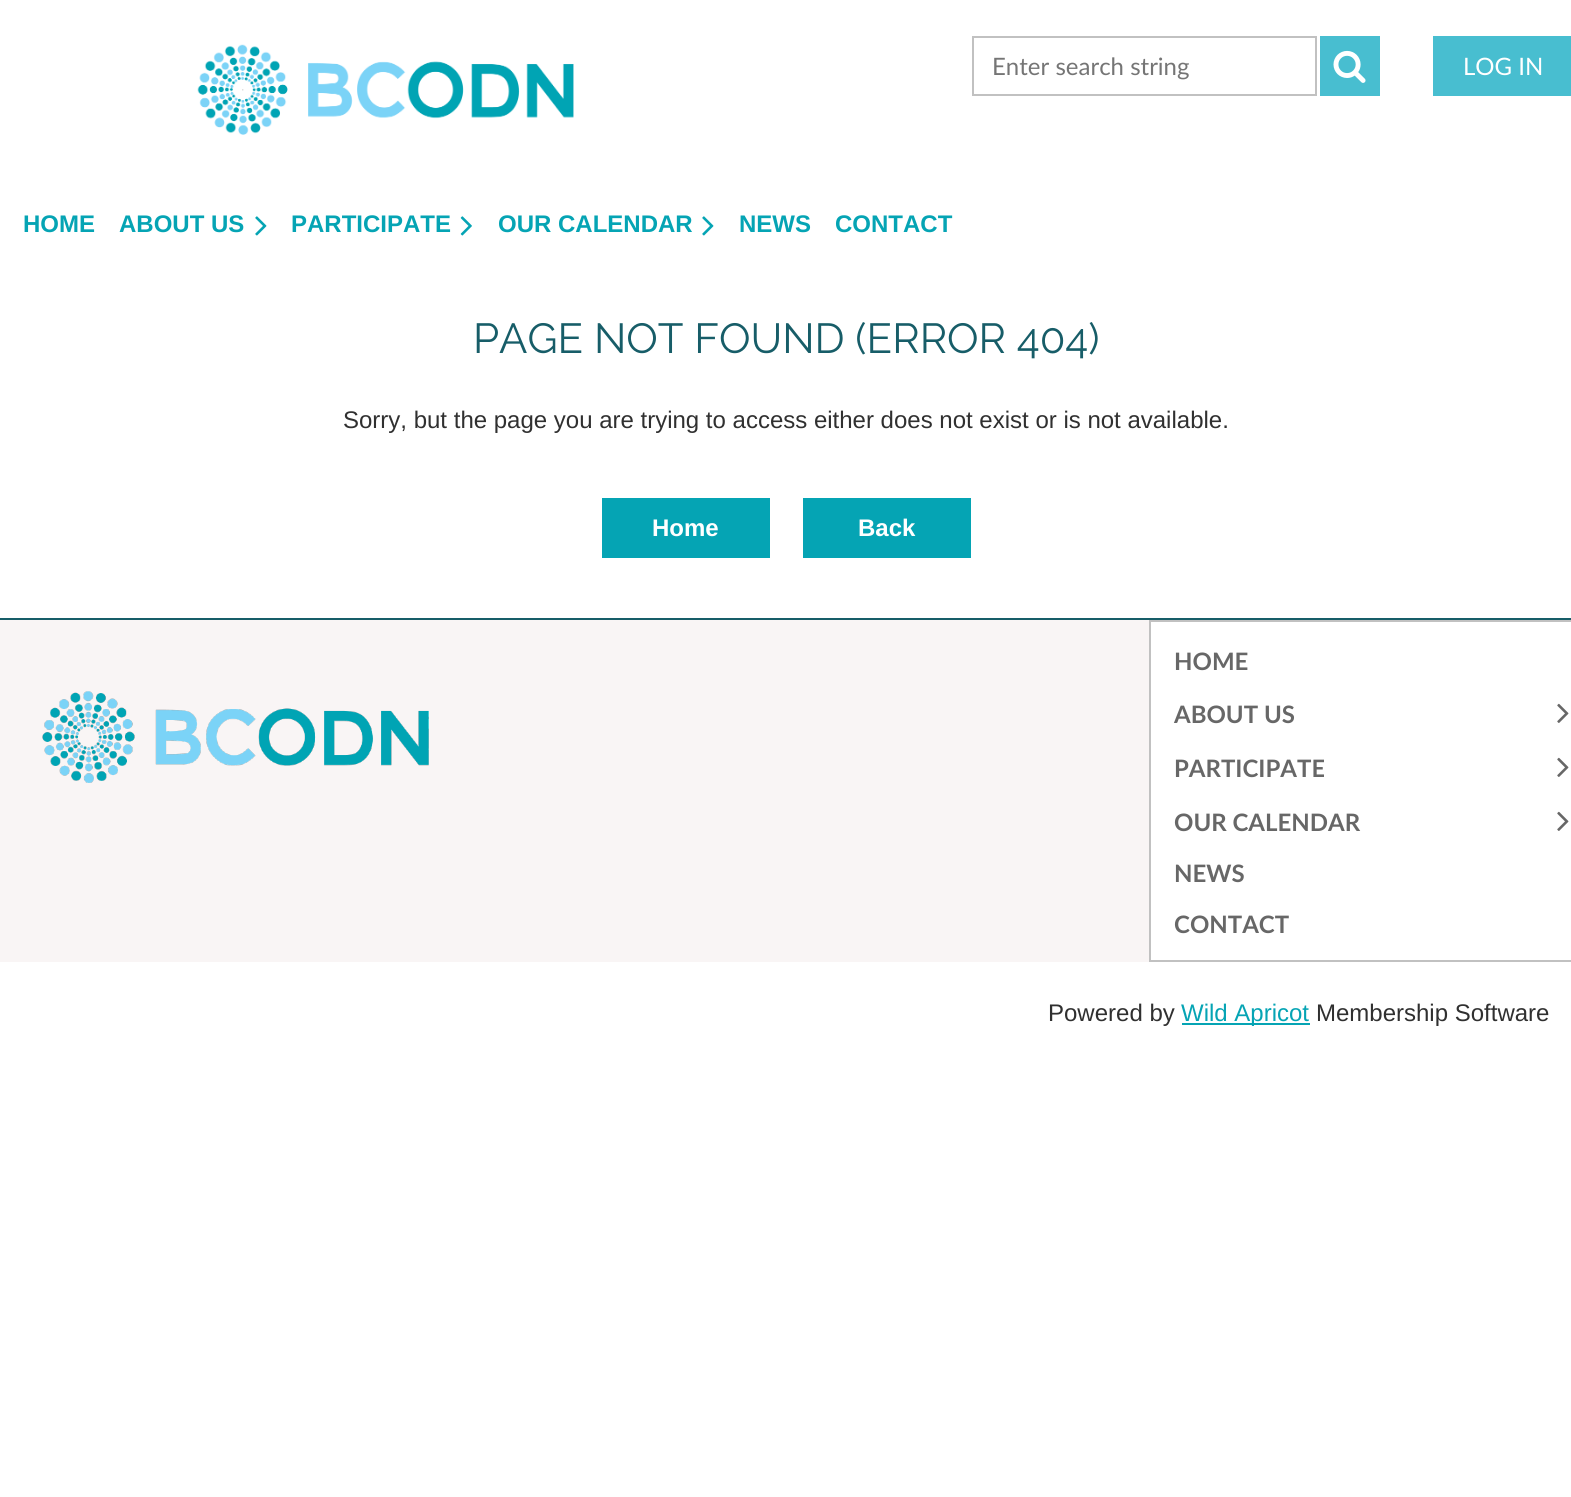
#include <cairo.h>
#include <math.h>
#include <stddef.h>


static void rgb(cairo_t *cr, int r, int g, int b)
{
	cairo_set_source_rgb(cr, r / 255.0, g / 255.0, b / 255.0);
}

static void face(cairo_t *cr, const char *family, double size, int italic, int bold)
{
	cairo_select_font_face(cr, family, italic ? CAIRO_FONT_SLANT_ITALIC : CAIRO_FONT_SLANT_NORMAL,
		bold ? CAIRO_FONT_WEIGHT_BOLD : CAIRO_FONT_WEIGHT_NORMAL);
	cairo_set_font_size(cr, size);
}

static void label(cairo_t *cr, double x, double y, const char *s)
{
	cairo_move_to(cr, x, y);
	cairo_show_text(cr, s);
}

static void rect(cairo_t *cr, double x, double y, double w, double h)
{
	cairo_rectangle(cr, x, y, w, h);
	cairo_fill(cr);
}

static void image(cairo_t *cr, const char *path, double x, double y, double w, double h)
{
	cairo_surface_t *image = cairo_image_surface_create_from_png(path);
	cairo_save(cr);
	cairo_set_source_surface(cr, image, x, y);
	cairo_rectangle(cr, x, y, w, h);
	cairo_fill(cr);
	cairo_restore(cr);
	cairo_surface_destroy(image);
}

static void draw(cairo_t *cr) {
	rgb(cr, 255, 255, 255);
	cairo_paint(cr);
	image(cr, "image0.png", 197, 44, 377, 91);
	cairo_rectangle(cr, 973, 37, 343, 58);
	rgb(cr, 193, 193, 193);
	cairo_stroke(cr);
	face(cr, "Lato", 24, 0, 0);
	rgb(cr, 117, 117, 117);
	label(cr, 992, 75, "Enter search string");
	rgb(cr, 72, 190, 208);
	rect(cr, 1320, 36, 60, 60);
	image(cr, "image1.png", 1333, 50, 33, 33);
	rect(cr, 1433, 36, 138, 60);
	rgb(cr, 255, 255, 255);
	label(cr, 1463, 75, "LOG IN");
	face(cr, "Liberation Sans", 24, 0, 1);
	rgb(cr, 5, 164, 180);
	label(cr, 23, 232, "HOME");
	label(cr, 119, 232, "ABOUT US");
	image(cr, "image2.png", 255, 216, 12, 20);
	label(cr, 291, 232, "PARTICIPATE");
	image(cr, "image3.png", 460, 216, 12, 20);
	label(cr, 498, 232, "OUR CALENDAR");
	image(cr, "image2.png", 702, 216, 12, 20);
	label(cr, 739, 232, "NEWS");
	label(cr, 835, 232, "CONTACT");
	face(cr, "Raleway", 42, 0, 0);
	rgb(cr, 23, 93, 104);
	label(cr, 473, 353, "PAGE NOT FOUND (ERROR 404)");
	face(cr, "Liberation Sans", 24, 0, 0);
	rgb(cr, 48, 48, 48);
	label(cr, 343, 428, "Sorry, but the page you are trying to access either does not exist or is not available.");
	rgb(cr, 5, 164, 180);
	rect(cr, 602, 498, 168, 60);
	face(cr, "Liberation Sans", 24, 0, 1);
	rgb(cr, 255, 255, 255);
	label(cr, 652, 536, "Home");
	rgb(cr, 5, 164, 180);
	rect(cr, 803, 498, 168, 60);
	rgb(cr, 255, 255, 255);
	label(cr, 858, 536, "Back");
	rgb(cr, 23, 93, 104);
	rect(cr, 0, 618, 1571, 2);
	rgb(cr, 249, 245, 245);
	rect(cr, 0, 620, 1149, 342);
	image(cr, "image4.png", 42, 691, 387, 92);
	cairo_rectangle(cr, 1150, 621, 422, 340);
	rgb(cr, 193, 193, 193);
	cairo_stroke(cr);
	face(cr, "Lato", 24, 0, 1);
	rgb(cr, 103, 103, 103);
	label(cr, 1174, 670, "HOME");
	label(cr, 1174, 723, "ABOUT US");
	image(cr, "image5.png", 1557, 703, 12, 20);
	label(cr, 1174, 777, "PARTICIPATE");
	image(cr, "image5.png", 1557, 757, 12, 20);
	label(cr, 1174, 831, "OUR CALENDAR");
	image(cr, "image5.png", 1557, 811, 12, 20);
	label(cr, 1174, 882, "NEWS");
	label(cr, 1174, 933, "CONTACT");
	face(cr, "Liberation Sans", 24, 0, 0);
	rgb(cr, 48, 48, 48);
	label(cr, 1048, 1021, "Powered by");
	rgb(cr, 5, 164, 180);
	rect(cr, 1182, 1023, 128, 2);
	label(cr, 1181, 1021, "Wild Apricot");
	rgb(cr, 48, 48, 48);
	label(cr, 1316, 1021, "Membership Software");
}

int main(void) {
	cairo_surface_t *surface = cairo_image_surface_create(CAIRO_FORMAT_RGB24, 1571, 1497);
	cairo_t *cr = cairo_create(surface);
	cairo_font_options_t *options = cairo_font_options_create();
	cairo_font_options_set_hint_metrics(options, CAIRO_HINT_METRICS_OFF);
	cairo_font_options_set_hint_style(options, CAIRO_HINT_STYLE_NONE);
	cairo_set_font_options(cr, options);
	cairo_set_miter_limit(cr, 4);
	draw(cr);
	cairo_surface_write_to_png(surface, "render.png");
	cairo_font_options_destroy(options);
	cairo_destroy(cr);
	cairo_surface_destroy(surface);
	return 0;
}
